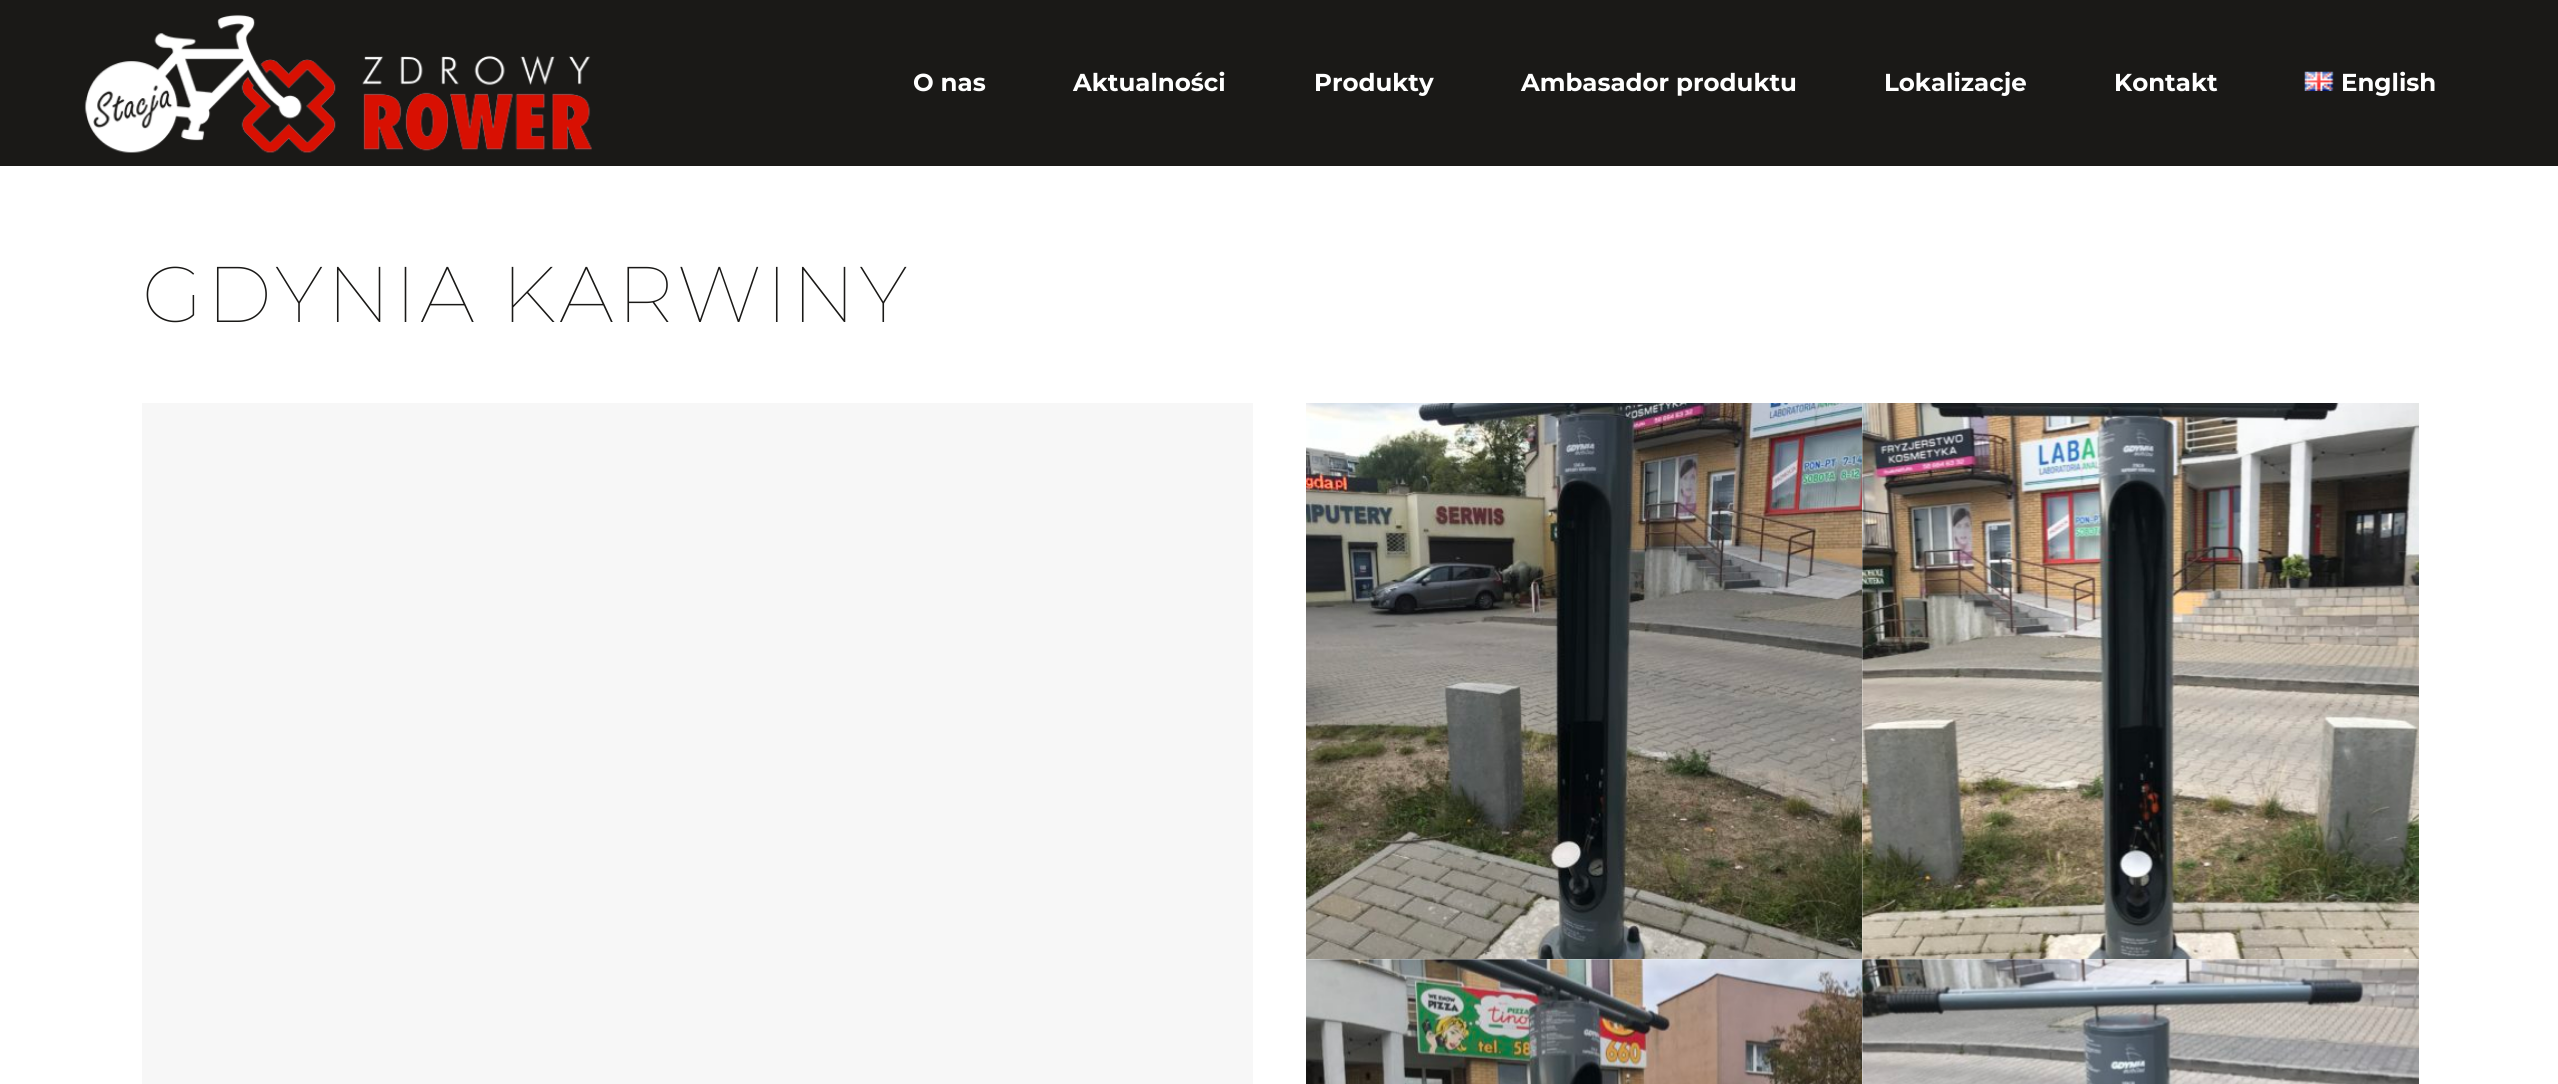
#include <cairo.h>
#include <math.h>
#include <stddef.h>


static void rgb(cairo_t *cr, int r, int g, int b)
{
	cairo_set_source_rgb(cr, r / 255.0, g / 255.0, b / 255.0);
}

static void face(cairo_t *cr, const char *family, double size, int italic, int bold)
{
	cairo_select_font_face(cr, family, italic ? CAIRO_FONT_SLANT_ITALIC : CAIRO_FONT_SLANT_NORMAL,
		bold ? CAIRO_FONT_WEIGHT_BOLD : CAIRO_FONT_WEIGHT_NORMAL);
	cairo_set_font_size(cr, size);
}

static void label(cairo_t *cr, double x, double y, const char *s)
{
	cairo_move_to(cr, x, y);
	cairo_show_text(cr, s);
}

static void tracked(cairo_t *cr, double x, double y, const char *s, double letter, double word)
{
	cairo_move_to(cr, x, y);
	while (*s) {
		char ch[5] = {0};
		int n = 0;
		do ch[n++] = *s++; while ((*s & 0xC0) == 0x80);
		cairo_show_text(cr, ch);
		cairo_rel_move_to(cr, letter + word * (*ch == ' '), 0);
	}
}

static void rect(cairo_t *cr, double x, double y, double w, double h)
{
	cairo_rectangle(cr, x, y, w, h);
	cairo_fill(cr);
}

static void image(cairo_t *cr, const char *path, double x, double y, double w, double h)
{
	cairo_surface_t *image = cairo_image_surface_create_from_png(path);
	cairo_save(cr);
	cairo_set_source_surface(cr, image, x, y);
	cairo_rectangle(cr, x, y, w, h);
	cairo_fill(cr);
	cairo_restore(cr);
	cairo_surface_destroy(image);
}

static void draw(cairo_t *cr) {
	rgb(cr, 255, 255, 255);
	cairo_paint(cr);
	rgb(cr, 26, 25, 23);
	rect(cr, 0, 0, 2558, 166);
	image(cr, "image0.png", 84, 14, 508, 139);
	face(cr, "Montserrat", 24.5, 0, 1);
	rgb(cr, 255, 255, 255);
	label(cr, 913, 91, "O nas");
	label(cr, 1073, 91, "Aktualności");
	label(cr, 1314, 91, "Produkty");
	label(cr, 1521, 91, "Ambasador produktu");
	label(cr, 1884, 91, "Lokalizacje");
	label(cr, 2114, 91, "Kontakt");
	image(cr, "image1.png", 2304, 71, 30, 20);
	label(cr, 2341, 91, "English");
	face(cr, "Montserrat Thin", 78.75, 0, 0);
	rgb(cr, 26, 25, 23);
	tracked(cr, 142, 322, "GDYNIA KARWINY", 3.5, 0);
	rgb(cr, 247, 247, 247);
	rect(cr, 142, 403, 1111, 681);
	image(cr, "image2.png", 1306, 403, 556, 556);
	image(cr, "image3.png", 1862, 403, 557, 556);
	image(cr, "image4.png", 1306, 959, 556, 125);
	image(cr, "image5.png", 1862, 959, 557, 125);
}

int main(void) {
	cairo_surface_t *surface = cairo_image_surface_create(CAIRO_FORMAT_RGB24, 2558, 1084);
	cairo_t *cr = cairo_create(surface);
	cairo_font_options_t *options = cairo_font_options_create();
	cairo_font_options_set_hint_metrics(options, CAIRO_HINT_METRICS_OFF);
	cairo_font_options_set_hint_style(options, CAIRO_HINT_STYLE_NONE);
	cairo_set_font_options(cr, options);
	cairo_set_miter_limit(cr, 4);
	draw(cr);
	cairo_surface_write_to_png(surface, "render.png");
	cairo_font_options_destroy(options);
	cairo_destroy(cr);
	cairo_surface_destroy(surface);
	return 0;
}
